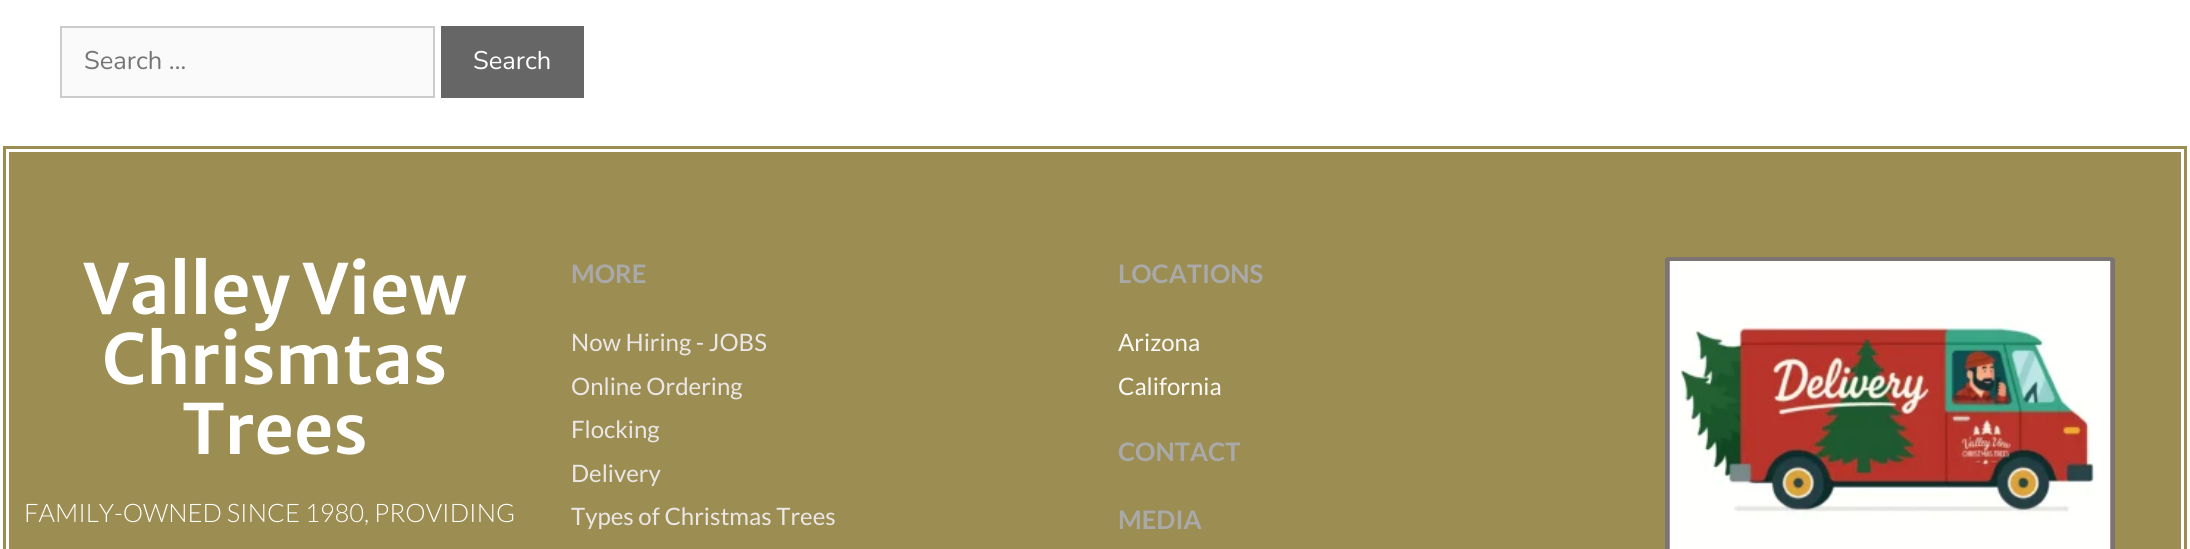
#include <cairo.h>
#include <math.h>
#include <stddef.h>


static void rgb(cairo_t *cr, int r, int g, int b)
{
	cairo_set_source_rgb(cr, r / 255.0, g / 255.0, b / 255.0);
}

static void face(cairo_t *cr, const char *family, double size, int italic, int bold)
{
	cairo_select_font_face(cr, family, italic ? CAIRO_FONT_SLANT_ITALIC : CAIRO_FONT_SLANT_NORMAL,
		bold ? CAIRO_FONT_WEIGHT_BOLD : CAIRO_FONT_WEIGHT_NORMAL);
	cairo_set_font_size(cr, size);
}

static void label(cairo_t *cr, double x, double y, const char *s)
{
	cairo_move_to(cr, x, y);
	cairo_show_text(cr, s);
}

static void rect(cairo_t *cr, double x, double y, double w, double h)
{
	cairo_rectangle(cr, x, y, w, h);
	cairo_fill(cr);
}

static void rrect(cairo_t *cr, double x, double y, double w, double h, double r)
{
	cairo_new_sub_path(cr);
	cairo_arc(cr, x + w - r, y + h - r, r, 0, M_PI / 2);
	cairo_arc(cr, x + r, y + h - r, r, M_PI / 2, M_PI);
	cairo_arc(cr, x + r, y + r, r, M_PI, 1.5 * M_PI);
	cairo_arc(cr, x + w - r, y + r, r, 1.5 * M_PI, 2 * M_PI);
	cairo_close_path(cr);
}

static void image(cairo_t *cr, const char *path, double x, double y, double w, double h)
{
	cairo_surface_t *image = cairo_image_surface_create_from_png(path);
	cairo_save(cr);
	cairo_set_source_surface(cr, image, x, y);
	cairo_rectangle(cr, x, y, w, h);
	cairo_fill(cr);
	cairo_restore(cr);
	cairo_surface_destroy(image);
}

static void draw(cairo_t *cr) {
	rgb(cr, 255, 255, 255);
	cairo_paint(cr);
	rgb(cr, 250, 250, 250);
	cairo_rectangle(cr, 61, 27, 373, 70);
	cairo_fill_preserve(cr);
	rgb(cr, 204, 204, 204);
	cairo_stroke(cr);
	face(cr, "Nunito", 25.5, 0, 0);
	rgb(cr, 117, 117, 117);
	label(cr, 84, 69, "Search …");
	rgb(cr, 102, 102, 102);
	rect(cr, 441, 26, 143, 72);
	rgb(cr, 255, 255, 255);
	label(cr, 473, 69, "Search");
	rgb(cr, 156, 141, 82);
	rect(cr, 3, 146, 2184, 403);
	cairo_rectangle(cr, 7.5, 150.5, 2175, 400);
	rgb(cr, 255, 255, 255);
	cairo_set_line_width(cr, 3);
	cairo_stroke(cr);
	face(cr, "Merriweather Sans SemiBold", 69, 0, 0);
	label(cr, 83, 314, "Valley View");
	label(cr, 102, 384, "Chrismtas");
	label(cr, 182, 454, "Trees");
	face(cr, "Lato Light", 25.5, 0, 0);
	label(cr, 24, 522, "FAMILY-OWNED SINCE 1980, PROVIDING");
	face(cr, "Lato", 25.5, 0, 1);
	rgb(cr, 169, 169, 169);
	label(cr, 571, 283, "MORE");
	face(cr, "Lato", 24, 0, 0);
	rgb(cr, 235, 231, 231);
	label(cr, 571, 351, "Now Hiring - JOBS");
	label(cr, 571, 395, "Online Ordering");
	label(cr, 571, 438, "Flocking");
	label(cr, 571, 482, "Delivery");
	label(cr, 571, 525, "Types of Christmas Trees");
	face(cr, "Lato", 25.5, 0, 1);
	rgb(cr, 169, 169, 169);
	label(cr, 1118, 283, "LOCATIONS");
	face(cr, "Lato", 24, 0, 0);
	rgb(cr, 250, 249, 246);
	label(cr, 1118, 351, "Arizona");
	label(cr, 1118, 395, "California");
	face(cr, "Lato", 25.5, 0, 1);
	rgb(cr, 169, 169, 169);
	label(cr, 1118, 461, "CONTACT");
	label(cr, 1118, 529, "MEDIA");
	rrect(cr, 1667.5, 259.5, 445, 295, 0.5);
	rgb(cr, 124, 115, 115);
	cairo_set_line_width(cr, 5);
	cairo_stroke(cr);
	image(cr, "image0.png", 1669, 261, 442, 288);
}

int main(void) {
	cairo_surface_t *surface = cairo_image_surface_create(CAIRO_FORMAT_RGB24, 2190, 549);
	cairo_t *cr = cairo_create(surface);
	cairo_font_options_t *options = cairo_font_options_create();
	cairo_font_options_set_hint_metrics(options, CAIRO_HINT_METRICS_OFF);
	cairo_font_options_set_hint_style(options, CAIRO_HINT_STYLE_NONE);
	cairo_set_font_options(cr, options);
	cairo_set_miter_limit(cr, 4);
	draw(cr);
	cairo_surface_write_to_png(surface, "render.png");
	cairo_font_options_destroy(options);
	cairo_destroy(cr);
	cairo_surface_destroy(surface);
	return 0;
}
